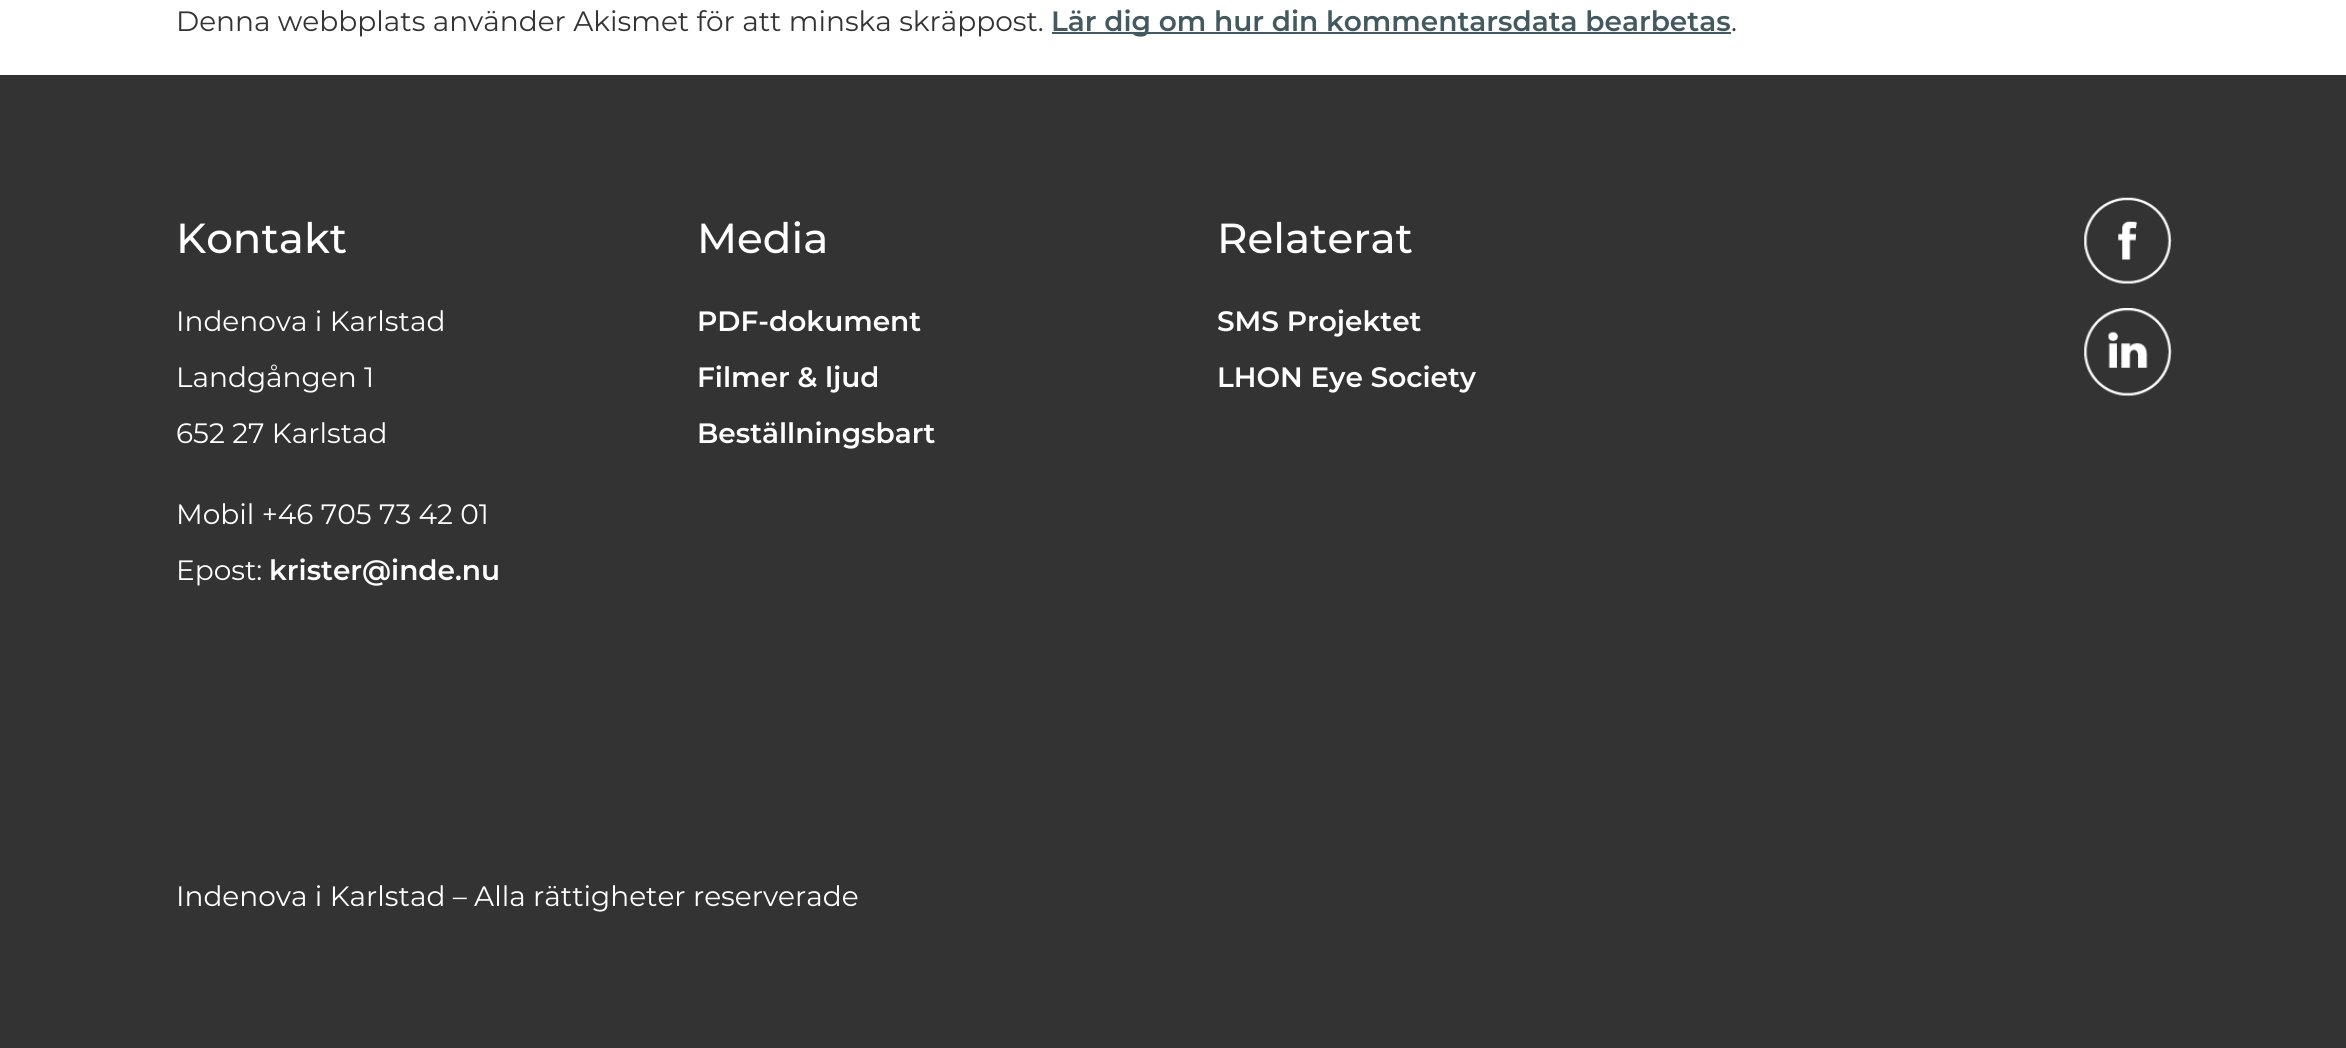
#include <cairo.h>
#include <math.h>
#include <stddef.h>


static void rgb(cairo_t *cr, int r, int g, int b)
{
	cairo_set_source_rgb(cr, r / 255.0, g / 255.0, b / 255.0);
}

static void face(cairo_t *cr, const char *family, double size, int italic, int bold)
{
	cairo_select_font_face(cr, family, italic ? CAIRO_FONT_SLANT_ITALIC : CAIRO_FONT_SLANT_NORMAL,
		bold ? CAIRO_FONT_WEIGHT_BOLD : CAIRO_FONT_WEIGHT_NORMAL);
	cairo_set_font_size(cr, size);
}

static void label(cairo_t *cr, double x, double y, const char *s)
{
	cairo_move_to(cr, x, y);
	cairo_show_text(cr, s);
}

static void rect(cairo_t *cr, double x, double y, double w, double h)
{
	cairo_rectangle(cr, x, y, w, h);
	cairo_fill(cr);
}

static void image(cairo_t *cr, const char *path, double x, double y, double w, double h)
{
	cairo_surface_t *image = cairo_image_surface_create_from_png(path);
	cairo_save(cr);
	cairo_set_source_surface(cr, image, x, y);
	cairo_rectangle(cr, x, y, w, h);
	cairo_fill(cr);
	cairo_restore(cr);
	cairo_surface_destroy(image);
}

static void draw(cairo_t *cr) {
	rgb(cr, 255, 255, 255);
	cairo_paint(cr);
	face(cr, "Montserrat", 28, 0, 0);
	rgb(cr, 51, 51, 51);
	label(cr, 176, 31, "Denna webbplats använder Akismet för att minska skräppost.");
	rgb(cr, 67, 89, 96);
	rect(cr, 1052, 32, 679, 2);
	face(cr, "Montserrat SemiBold", 28, 0, 0);
	label(cr, 1051, 31, "Lär dig om hur din kommentarsdata bearbetas");
	face(cr, "Montserrat", 28, 0, 0);
	rgb(cr, 51, 51, 51);
	label(cr, 1731, 31, ".");
	rect(cr, 0, 75, 2346, 973);
	face(cr, "Montserrat Medium", 42, 0, 0);
	rgb(cr, 255, 255, 255);
	label(cr, 176, 253, "Kontakt");
	face(cr, "Montserrat", 28, 0, 0);
	label(cr, 176, 331, "Indenova i Karlstad");
	label(cr, 176, 387, "Landgången 1");
	label(cr, 176, 443, "652 27 Karlstad");
	label(cr, 176, 524, "Mobil +46 705 73 42 01");
	label(cr, 176, 580, "Epost:");
	face(cr, "Montserrat SemiBold", 28, 0, 0);
	label(cr, 269, 580, "krister@inde.nu");
	face(cr, "Montserrat Medium", 42, 0, 0);
	label(cr, 697, 253, "Media");
	face(cr, "Montserrat SemiBold", 28, 0, 0);
	label(cr, 697, 331, "PDF-dokument");
	label(cr, 697, 387, "Filmer & ljud");
	label(cr, 697, 443, "Beställningsbart");
	face(cr, "Montserrat Medium", 42, 0, 0);
	label(cr, 1217, 253, "Relaterat");
	face(cr, "Montserrat SemiBold", 28, 0, 0);
	label(cr, 1217, 331, "SMS Projektet");
	label(cr, 1217, 387, "LHON Eye Society");
	image(cr, "image0.png", 2084, 197, 88, 87);
	image(cr, "image1.png", 2084, 308, 88, 88);
	face(cr, "Montserrat", 28, 0, 0);
	label(cr, 176, 906, "Indenova i Karlstad – Alla rättigheter reserverade");
}

int main(void) {
	cairo_surface_t *surface = cairo_image_surface_create(CAIRO_FORMAT_RGB24, 2346, 1048);
	cairo_t *cr = cairo_create(surface);
	cairo_font_options_t *options = cairo_font_options_create();
	cairo_font_options_set_hint_metrics(options, CAIRO_HINT_METRICS_OFF);
	cairo_font_options_set_hint_style(options, CAIRO_HINT_STYLE_NONE);
	cairo_set_font_options(cr, options);
	cairo_set_miter_limit(cr, 4);
	draw(cr);
	cairo_surface_write_to_png(surface, "render.png");
	cairo_font_options_destroy(options);
	cairo_destroy(cr);
	cairo_surface_destroy(surface);
	return 0;
}
